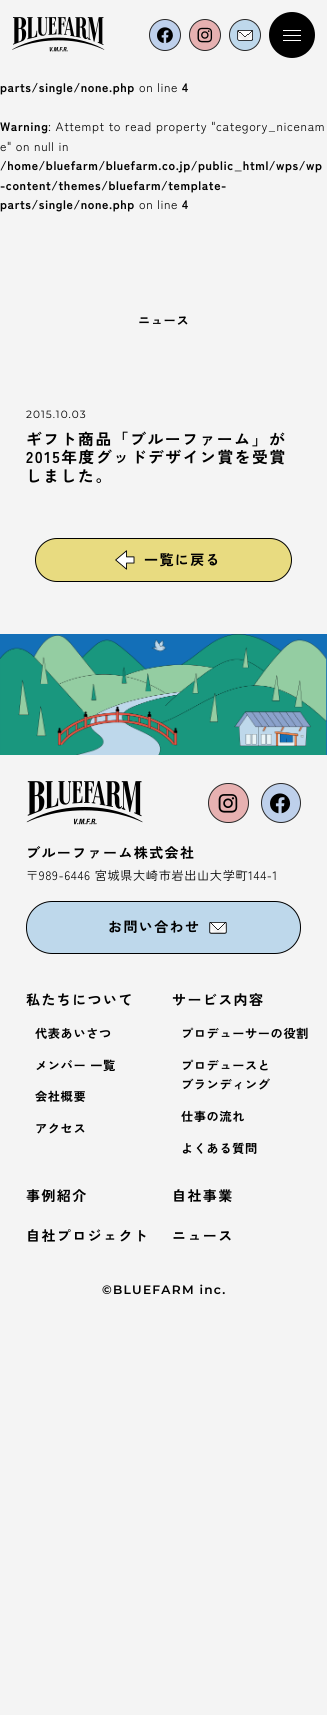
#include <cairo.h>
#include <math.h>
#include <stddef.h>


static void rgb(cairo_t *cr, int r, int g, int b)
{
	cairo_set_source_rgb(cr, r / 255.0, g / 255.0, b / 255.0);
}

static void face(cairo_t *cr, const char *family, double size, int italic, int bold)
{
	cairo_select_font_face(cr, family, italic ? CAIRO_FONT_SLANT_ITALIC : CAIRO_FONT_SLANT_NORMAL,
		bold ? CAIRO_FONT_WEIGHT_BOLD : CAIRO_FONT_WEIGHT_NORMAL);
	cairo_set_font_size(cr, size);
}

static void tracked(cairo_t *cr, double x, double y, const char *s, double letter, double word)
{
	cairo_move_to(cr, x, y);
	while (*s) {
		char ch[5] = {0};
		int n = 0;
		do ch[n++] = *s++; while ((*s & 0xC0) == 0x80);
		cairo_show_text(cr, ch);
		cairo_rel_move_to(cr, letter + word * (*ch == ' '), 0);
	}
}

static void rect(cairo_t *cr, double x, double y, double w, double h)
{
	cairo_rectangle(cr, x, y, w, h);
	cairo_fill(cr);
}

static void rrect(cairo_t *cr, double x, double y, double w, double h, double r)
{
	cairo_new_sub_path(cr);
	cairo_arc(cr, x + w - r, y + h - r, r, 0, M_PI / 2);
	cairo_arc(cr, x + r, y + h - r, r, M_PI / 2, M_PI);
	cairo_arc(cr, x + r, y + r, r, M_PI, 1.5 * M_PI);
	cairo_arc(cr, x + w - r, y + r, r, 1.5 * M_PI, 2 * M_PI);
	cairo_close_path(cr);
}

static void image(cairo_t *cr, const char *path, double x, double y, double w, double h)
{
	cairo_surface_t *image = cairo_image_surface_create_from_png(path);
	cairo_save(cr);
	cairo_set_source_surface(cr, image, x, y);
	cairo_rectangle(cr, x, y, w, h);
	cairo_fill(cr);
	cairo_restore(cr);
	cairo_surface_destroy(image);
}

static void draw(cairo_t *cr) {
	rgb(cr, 244, 244, 244);
	cairo_paint(cr);
	image(cr, "image0.png", 12, 17, 93, 35);
	rgb(cr, 190, 208, 235);
	cairo_arc(cr, 165, 35, 15.5, 0, 2 * M_PI);
	cairo_fill_preserve(cr);
	rgb(cr, 41, 41, 41);
	cairo_set_line_width(cr, 1);
	cairo_stroke(cr);
	image(cr, "image1.png", 157, 27, 16, 16);
	rgb(cr, 231, 177, 177);
	cairo_arc(cr, 205, 35, 15.5, 0, 2 * M_PI);
	cairo_fill_preserve(cr);
	rgb(cr, 41, 41, 41);
	cairo_stroke(cr);
	image(cr, "image2.png", 197, 27, 16, 16);
	rgb(cr, 190, 216, 235);
	cairo_arc(cr, 245, 35, 15.5, 0, 2 * M_PI);
	cairo_fill_preserve(cr);
	rgb(cr, 41, 41, 41);
	cairo_stroke(cr);
	image(cr, "image3.png", 237, 30, 16, 11);
	rgb(cr, 0, 0, 0);
	cairo_arc(cr, 292, 35, 23, 0, 2 * M_PI);
	cairo_fill(cr);
	rgb(cr, 255, 255, 255);
	rect(cr, 283, 30, 18, 1);
	rect(cr, 283, 35, 18, 1);
	rect(cr, 283, 40, 18, 1);
	face(cr, "Zen Kaku Gothic New", 12.2, 0, 1);
	rgb(cr, 0, 0, 0);
	tracked(cr, 0, 92, "parts/single/none.php", 0.6, 0);
	face(cr, "Zen Kaku Gothic New", 12.2, 0, 0);
	tracked(cr, 139, 92, "on line", 0.6, 0);
	face(cr, "Zen Kaku Gothic New", 12.2, 0, 1);
	tracked(cr, 182, 92, "4", 0.6, 0);
	tracked(cr, 0, 131, "Warning", 0.6, 0);
	face(cr, "Zen Kaku Gothic New", 12.2, 0, 0);
	tracked(cr, 48, 131, ": Attempt to read property \"category_nicenam", 0.6, 0);
	tracked(cr, 0, 151, "e\" on null in", 0.6, 0);
	face(cr, "Zen Kaku Gothic New", 12.2, 0, 1);
	tracked(cr, 0, 170, "/home/bluefarm/bluefarm.co.jp/public_html/wps/wp", 0.6, 0);
	tracked(cr, 0, 190, "-content/themes/bluefarm/template-", 0.6, 0);
	tracked(cr, 0, 209, "parts/single/none.php", 0.6, 0);
	face(cr, "Zen Kaku Gothic New", 12.2, 0, 0);
	tracked(cr, 139, 209, "on line", 0.6, 0);
	face(cr, "Zen Kaku Gothic New", 12.2, 0, 1);
	tracked(cr, 182, 209, "4", 0.6, 0);
	tracked(cr, 138, 325, "ニュース", 0.6, 0);
	face(cr, "Montserrat", 10.5, 0, 0);
	tracked(cr, 26, 418, "2015.10.03", 1, 0);
	face(cr, "Zen Kaku Gothic New", 15.75, 0, 1);
	tracked(cr, 26, 445, "ギフト商品「ブルーファーム」が", 1.6, 0);
	tracked(cr, 26, 463, "2015年度グッドデザイン賞を受賞", 1.6, 0);
	tracked(cr, 26, 482, "しました。", 1.6, 0);
	rgb(cr, 232, 219, 128);
	rrect(cr, 35.5, 538.5, 256, 43, 21.5);
	cairo_fill_preserve(cr);
	rgb(cr, 0, 0, 0);
	cairo_stroke(cr);
	image(cr, "image4.png", 115, 550, 20, 20);
	face(cr, "Zen Kaku Gothic New", 14, 0, 1);
	tracked(cr, 144, 565, "一覧に戻る", 1.4, 0);
	image(cr, "image5.png", 0, 634, 327, 121);
	image(cr, "image6.png", 26, 781, 117, 44);
	rgb(cr, 231, 177, 177);
	rrect(cr, 208.5, 783.5, 40, 39, 19.5);
	cairo_fill_preserve(cr);
	rgb(cr, 41, 41, 41);
	cairo_stroke(cr);
	image(cr, "image7.png", 218, 794, 20, 19);
	rgb(cr, 190, 208, 235);
	cairo_arc(cr, 281, 803, 19.5, 0, 2 * M_PI);
	cairo_fill_preserve(cr);
	rgb(cr, 41, 41, 41);
	cairo_stroke(cr);
	image(cr, "image8.png", 270, 793, 21, 21);
	rgb(cr, 0, 0, 0);
	tracked(cr, 26, 858, "ブルーファーム株式会社", 1.4, 0);
	face(cr, "Zen Kaku Gothic New", 12.2, 0, 0);
	tracked(cr, 26, 880, "〒989-6446 宮城県大崎市岩出山大学町144-1", 0.6, 0);
	rgb(cr, 190, 216, 235);
	rrect(cr, 26.5, 901.5, 274, 52, 25.5);
	cairo_fill_preserve(cr);
	rgb(cr, 0, 0, 0);
	cairo_stroke(cr);
	face(cr, "Zen Kaku Gothic New", 14, 0, 1);
	tracked(cr, 108, 932, "お問い合わせ", 1.4, 0);
	image(cr, "image9.png", 209, 922, 18, 12);
	tracked(cr, 26, 1005, "私たちについて", 1.4, 0);
	face(cr, "Zen Kaku Gothic New", 12.2, 0, 1);
	tracked(cr, 35, 1038, "代表あいさつ", 0.6, 0);
	tracked(cr, 35, 1070, "メンバー 一覧", 0.6, 0);
	tracked(cr, 35, 1101, "会社概要", 0.6, 0);
	tracked(cr, 35, 1133, "アクセス", 0.6, 0);
	face(cr, "Zen Kaku Gothic New", 14, 0, 1);
	tracked(cr, 172, 1005, "サービス内容", 1.4, 0);
	face(cr, "Zen Kaku Gothic New", 12.2, 0, 1);
	tracked(cr, 181, 1038, "プロデューサーの役割", 0.6, 0);
	tracked(cr, 181, 1070, "プロデュースと", 0.6, 0);
	tracked(cr, 181, 1089, "ブランディング", 0.6, 0);
	tracked(cr, 181, 1121, "仕事の流れ", 0.6, 0);
	tracked(cr, 181, 1153, "よくある質問", 0.6, 0);
	face(cr, "Zen Kaku Gothic New", 14, 0, 1);
	tracked(cr, 26, 1201, "事例紹介", 1.4, 0);
	tracked(cr, 172, 1201, "自社事業", 1.4, 0);
	tracked(cr, 26, 1241, "自社プロジェクト", 1.4, 0);
	tracked(cr, 172, 1241, "ニュース", 1.4, 0);
	face(cr, "Montserrat SemiBold", 12.2, 0, 0);
	tracked(cr, 102, 1294, "©BLUEFARM inc.", 1.25, 0);
}

int main(void) {
	cairo_surface_t *surface = cairo_image_surface_create(CAIRO_FORMAT_RGB24, 327, 1715);
	cairo_t *cr = cairo_create(surface);
	cairo_font_options_t *options = cairo_font_options_create();
	cairo_font_options_set_hint_metrics(options, CAIRO_HINT_METRICS_OFF);
	cairo_font_options_set_hint_style(options, CAIRO_HINT_STYLE_NONE);
	cairo_set_font_options(cr, options);
	cairo_set_miter_limit(cr, 4);
	draw(cr);
	cairo_surface_write_to_png(surface, "render.png");
	cairo_font_options_destroy(options);
	cairo_destroy(cr);
	cairo_surface_destroy(surface);
	return 0;
}
